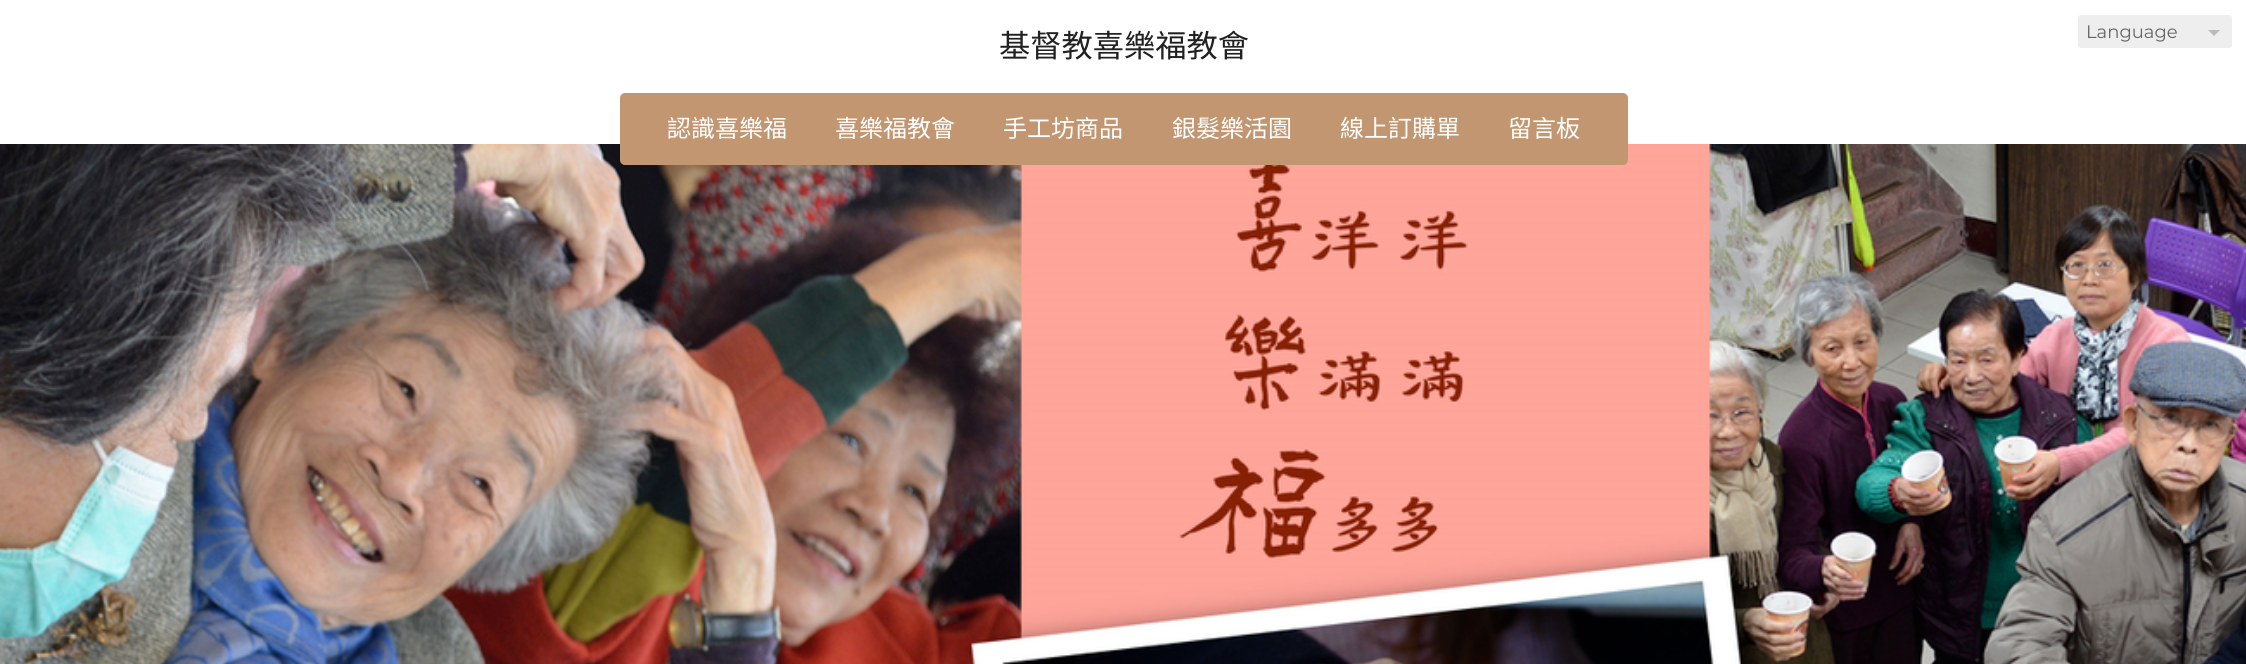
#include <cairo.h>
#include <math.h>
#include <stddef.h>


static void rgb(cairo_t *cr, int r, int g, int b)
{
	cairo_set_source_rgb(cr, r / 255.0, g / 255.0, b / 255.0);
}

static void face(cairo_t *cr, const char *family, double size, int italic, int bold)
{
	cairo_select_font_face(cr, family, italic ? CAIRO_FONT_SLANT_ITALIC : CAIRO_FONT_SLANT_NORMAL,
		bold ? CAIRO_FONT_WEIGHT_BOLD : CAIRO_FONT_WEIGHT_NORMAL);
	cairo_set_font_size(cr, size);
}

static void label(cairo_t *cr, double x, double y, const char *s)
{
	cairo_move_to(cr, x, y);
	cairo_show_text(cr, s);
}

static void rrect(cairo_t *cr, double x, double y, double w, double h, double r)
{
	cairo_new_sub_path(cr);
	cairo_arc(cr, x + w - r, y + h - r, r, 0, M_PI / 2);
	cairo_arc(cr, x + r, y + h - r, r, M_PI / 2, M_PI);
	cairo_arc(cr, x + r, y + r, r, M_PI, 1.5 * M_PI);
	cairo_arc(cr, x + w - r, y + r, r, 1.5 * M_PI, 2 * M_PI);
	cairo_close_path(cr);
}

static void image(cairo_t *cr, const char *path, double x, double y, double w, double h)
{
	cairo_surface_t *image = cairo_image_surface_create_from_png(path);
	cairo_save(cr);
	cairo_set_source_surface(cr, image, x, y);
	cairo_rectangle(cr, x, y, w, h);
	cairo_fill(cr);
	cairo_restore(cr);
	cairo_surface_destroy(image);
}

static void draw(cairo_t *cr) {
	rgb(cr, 255, 255, 255);
	cairo_paint(cr);
	face(cr, "Noto Sans CJK TC", 31.25, 0, 0);
	rgb(cr, 33, 33, 33);
	label(cr, 999, 57, "基督教喜樂福教會");
	rgb(cr, 238, 238, 238);
	rrect(cr, 2078, 15, 154, 33, 3);
	cairo_fill(cr);
	face(cr, "Montserrat Thin", 18, 0, 0);
	rgb(cr, 102, 102, 102);
	label(cr, 2086, 38, "Language");
	rgb(cr, 187, 187, 187);
	cairo_new_path(cr);
	cairo_move_to(cr, 2208, 30);
	cairo_line_to(cr, 2220, 30);
	cairo_line_to(cr, 2214, 36);
	cairo_close_path(cr);
	cairo_fill(cr);
	image(cr, "image0.png", 0, 144, 2246, 520);
	rgb(cr, 194, 150, 113);
	rrect(cr, 620, 93, 1008, 72, 5);
	cairo_fill(cr);
	face(cr, "Noto Sans CJK TC", 24, 0, 0);
	rgb(cr, 255, 255, 255);
	label(cr, 667, 137, "認識喜樂福");
	label(cr, 835, 137, "喜樂福教會");
	label(cr, 1003, 137, "手工坊商品");
	label(cr, 1172, 137, "銀髮樂活園");
	label(cr, 1340, 137, "線上訂購單");
	label(cr, 1508, 137, "留言板");
}

int main(void) {
	cairo_surface_t *surface = cairo_image_surface_create(CAIRO_FORMAT_RGB24, 2246, 664);
	cairo_t *cr = cairo_create(surface);
	cairo_font_options_t *options = cairo_font_options_create();
	cairo_font_options_set_hint_metrics(options, CAIRO_HINT_METRICS_OFF);
	cairo_font_options_set_hint_style(options, CAIRO_HINT_STYLE_NONE);
	cairo_set_font_options(cr, options);
	cairo_set_miter_limit(cr, 4);
	draw(cr);
	cairo_surface_write_to_png(surface, "render.png");
	cairo_font_options_destroy(options);
	cairo_destroy(cr);
	cairo_surface_destroy(surface);
	return 0;
}
